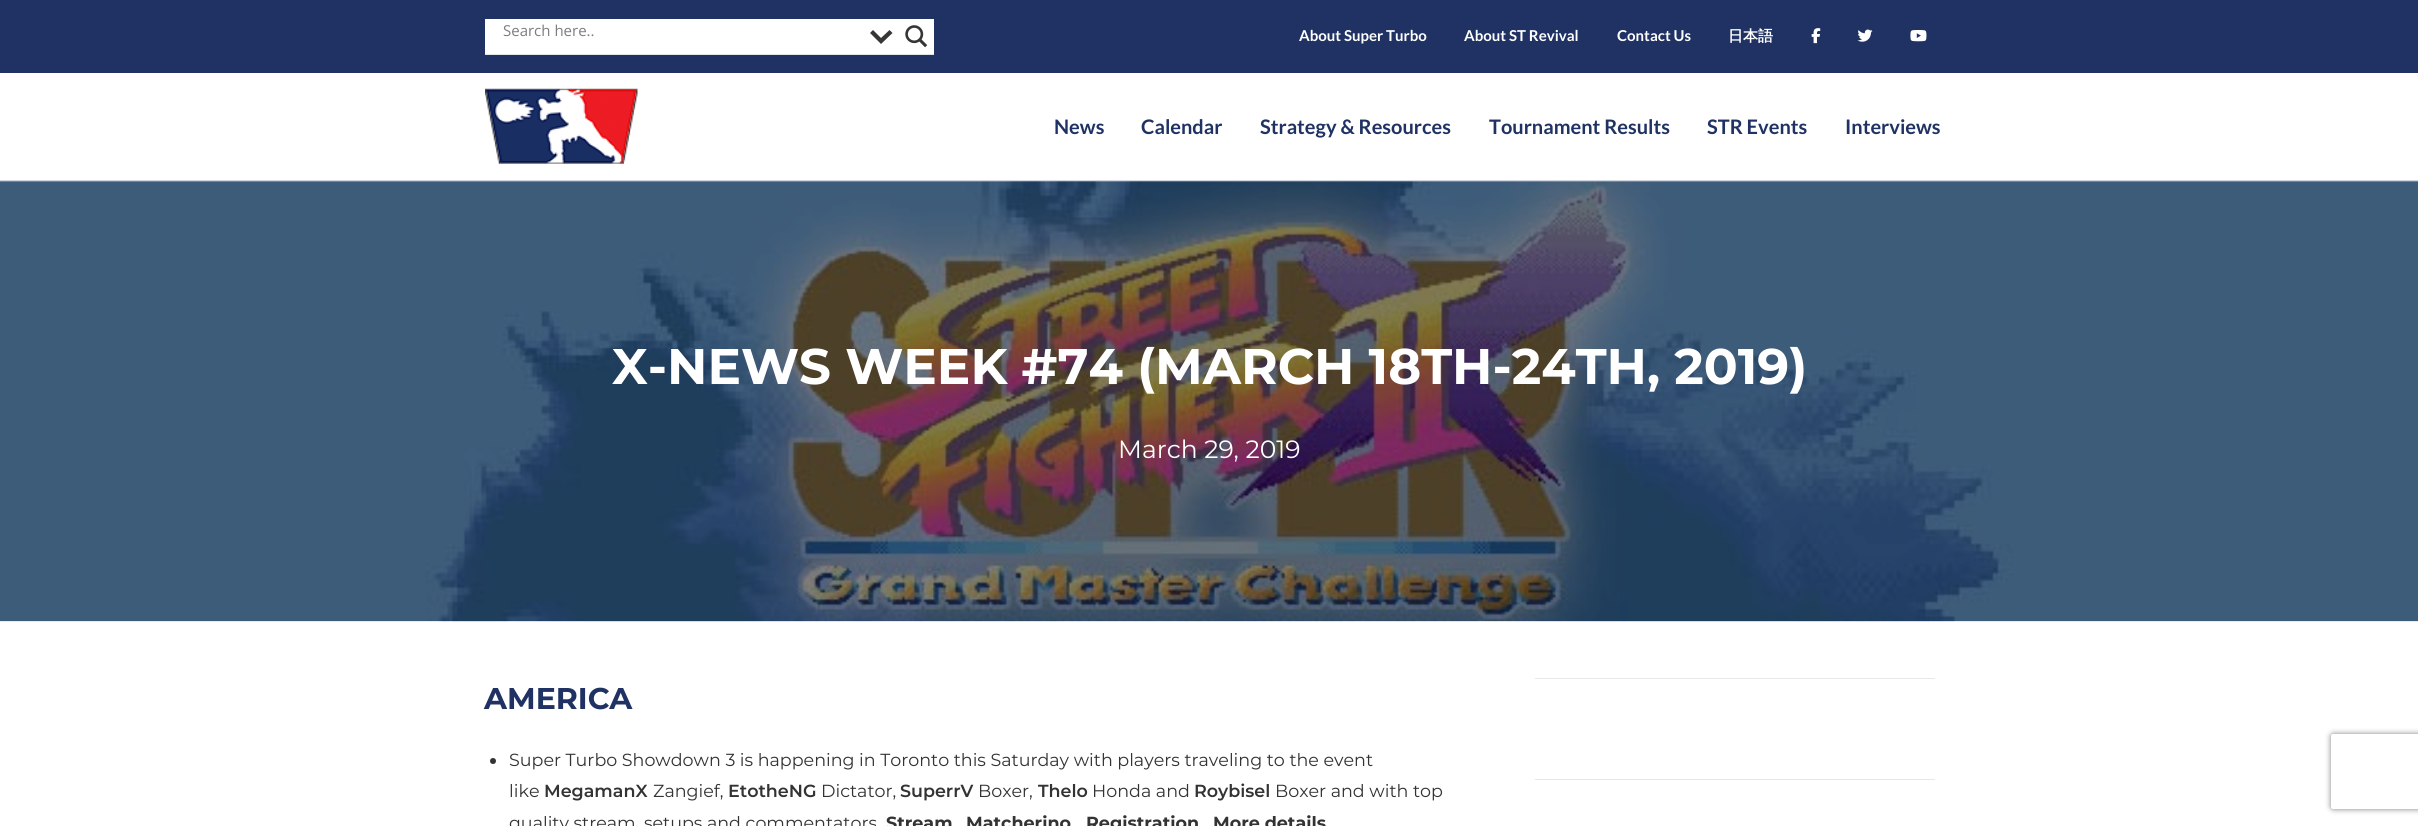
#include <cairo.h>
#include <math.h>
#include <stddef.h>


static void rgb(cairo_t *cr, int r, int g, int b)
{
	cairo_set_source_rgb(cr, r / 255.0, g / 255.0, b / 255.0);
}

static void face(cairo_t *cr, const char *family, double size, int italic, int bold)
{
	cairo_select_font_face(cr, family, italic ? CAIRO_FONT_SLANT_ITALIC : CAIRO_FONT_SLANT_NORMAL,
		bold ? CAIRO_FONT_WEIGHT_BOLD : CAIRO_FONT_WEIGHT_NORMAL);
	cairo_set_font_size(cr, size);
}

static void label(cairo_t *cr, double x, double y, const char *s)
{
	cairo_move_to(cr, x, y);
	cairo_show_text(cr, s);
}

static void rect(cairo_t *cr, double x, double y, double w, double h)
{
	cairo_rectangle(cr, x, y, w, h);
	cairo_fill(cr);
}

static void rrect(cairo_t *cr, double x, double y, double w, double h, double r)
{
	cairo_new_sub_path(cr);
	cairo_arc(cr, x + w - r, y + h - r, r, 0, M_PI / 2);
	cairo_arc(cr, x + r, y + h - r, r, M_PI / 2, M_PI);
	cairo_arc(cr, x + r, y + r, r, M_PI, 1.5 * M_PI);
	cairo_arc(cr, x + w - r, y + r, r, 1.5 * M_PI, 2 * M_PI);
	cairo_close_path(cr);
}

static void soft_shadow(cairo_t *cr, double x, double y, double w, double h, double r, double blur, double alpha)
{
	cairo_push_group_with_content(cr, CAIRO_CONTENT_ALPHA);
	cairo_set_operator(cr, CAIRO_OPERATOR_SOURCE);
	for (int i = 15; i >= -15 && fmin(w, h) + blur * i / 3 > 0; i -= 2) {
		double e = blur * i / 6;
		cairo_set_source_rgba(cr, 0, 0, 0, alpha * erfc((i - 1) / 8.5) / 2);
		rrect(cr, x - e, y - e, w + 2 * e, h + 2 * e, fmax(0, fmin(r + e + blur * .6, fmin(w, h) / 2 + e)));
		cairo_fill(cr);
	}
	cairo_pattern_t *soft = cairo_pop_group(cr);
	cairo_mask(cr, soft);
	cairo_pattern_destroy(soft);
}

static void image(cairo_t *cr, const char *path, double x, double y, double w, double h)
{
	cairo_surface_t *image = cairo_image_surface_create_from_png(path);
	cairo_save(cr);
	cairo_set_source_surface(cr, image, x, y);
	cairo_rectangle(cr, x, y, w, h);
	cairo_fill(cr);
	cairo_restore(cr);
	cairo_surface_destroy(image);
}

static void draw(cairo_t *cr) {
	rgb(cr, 255, 255, 255);
	cairo_paint(cr);
	rgb(cr, 31, 50, 99);
	rect(cr, 0, 0, 2418, 73);
	rgb(cr, 228, 228, 228);
	cairo_new_path(cr);
	cairo_move_to(cr, 485, 54);
	cairo_line_to(cr, 485, 55);
	cairo_line_to(cr, 934, 55);
	cairo_line_to(cr, 934, 20);
	cairo_line_to(cr, 934, 54);
	cairo_close_path(cr);
	cairo_fill(cr);
	rgb(cr, 255, 255, 255);
	rect(cr, 485, 19, 449, 35);
	face(cr, "Open Sans", 15, 0, 0);
	rgb(cr, 125, 125, 125);
	label(cr, 503, 36, "Search here..");
	rgb(cr, 54, 54, 54);
	cairo_new_path(cr);
	cairo_move_to(cr, 889.5, 30);
	cairo_line_to(cr, 892.5, 33);
	cairo_line_to(cr, 881, 44);
	cairo_line_to(cr, 870, 33);
	cairo_line_to(cr, 873, 30);
	cairo_line_to(cr, 881, 38);
	cairo_close_path(cr);
	cairo_fill(cr);
	image(cr, "image0.png", 905, 25, 23, 23);
	face(cr, "Lato", 15, 0, 1);
	rgb(cr, 255, 255, 255);
	label(cr, 1299, 41, "About Super Turbo");
	label(cr, 1464, 41, "About ST Revival");
	label(cr, 1617, 41, "Contact Us");
	face(cr, "WenQuanYi Zen Hei", 15, 0, 1);
	label(cr, 1728, 41, "日本語");
	image(cr, "image1.png", 1811, 28, 10, 16);
	image(cr, "image2.png", 1857, 29, 16, 13);
	image(cr, "image3.png", 1910, 30, 17, 12);
	rgb(cr, 210, 214, 224);
	rect(cr, 0, 180, 2418, 1);
	image(cr, "image4.png", 485, 88, 153, 76);
	face(cr, "Lato", 20, 0, 1);
	rgb(cr, 31, 50, 99);
	label(cr, 1054, 134, "News");
	label(cr, 1141, 134, "Calendar");
	label(cr, 1260, 134, "Strategy & Resources");
	label(cr, 1489, 134, "Tournament Results");
	label(cr, 1707, 134, "STR Events");
	label(cr, 1845, 134, "Interviews");
	image(cr, "image5.png", 0, 181, 2418, 441);
	face(cr, "Montserrat", 50, 0, 1);
	rgb(cr, 255, 255, 255);
	label(cr, 612, 384, "X-NEWS WEEK #74 (MARCH 18TH-24TH, 2019)");
	face(cr, "Montserrat", 25, 0, 0);
	label(cr, 1118, 458, "March 29, 2019");
	face(cr, "Montserrat", 30, 0, 1);
	rgb(cr, 31, 50, 99);
	label(cr, 484, 709, "AMERICA");
	rgb(cr, 51, 51, 51);
	cairo_new_path(cr);
	cairo_arc(cr, 493, 761, 3, 0, 2 * M_PI);
	cairo_fill(cr);
	face(cr, "Montserrat", 17.5, 0, 0);
	label(cr, 509, 766, "Super Turbo Showdown 3 is happening in Toronto this Saturday with players traveling to the event");
	label(cr, 509, 797, "like");
	face(cr, "Montserrat SemiBold", 17.5, 0, 0);
	label(cr, 544, 797, "MegamanX");
	face(cr, "Montserrat", 17.5, 0, 0);
	label(cr, 653, 797, "Zangief,");
	face(cr, "Montserrat SemiBold", 17.5, 0, 0);
	label(cr, 728, 797, "EtotheNG");
	face(cr, "Montserrat", 17.5, 0, 0);
	label(cr, 821, 797, "Dictator,");
	face(cr, "Montserrat SemiBold", 17.5, 0, 0);
	label(cr, 900, 797, "SuperrV");
	face(cr, "Montserrat", 17.5, 0, 0);
	label(cr, 978, 797, "Boxer,");
	face(cr, "Montserrat SemiBold", 17.5, 0, 0);
	label(cr, 1038, 797, "Thelo");
	face(cr, "Montserrat", 17.5, 0, 0);
	label(cr, 1092, 797, "Honda and");
	face(cr, "Montserrat SemiBold", 17.5, 0, 0);
	label(cr, 1194, 797, "Roybisel");
	face(cr, "Montserrat", 17.5, 0, 0);
	label(cr, 1275, 797, "Boxer and with top");
	label(cr, 509, 829, "quality stream, setups and commentators");
	face(cr, "Montserrat", 17.5, 0, 1);
	label(cr, 886, 829, "Stream");
	label(cr, 966, 829, "Matcherino");
	label(cr, 1086, 829, "Registration");
	label(cr, 1213, 829, "More details");
	rgb(cr, 232, 232, 232);
	rect(cr, 1535, 678, 400, 1);
	rect(cr, 1535, 779, 400, 1);
	cairo_save(cr);
	cairo_set_fill_rule(cr, CAIRO_FILL_RULE_EVEN_ODD);
	cairo_new_path(cr);
	cairo_move_to(cr, 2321, 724);
	cairo_line_to(cr, 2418, 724);
	cairo_line_to(cr, 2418, 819);
	cairo_line_to(cr, 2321, 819);
	cairo_close_path(cr);
	cairo_move_to(cr, 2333.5, 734);
	cairo_line_to(cr, 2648.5, 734);
	cairo_curve_to(cr, 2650, 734, 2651, 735, 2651, 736.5);
	cairo_line_to(cr, 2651, 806.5);
	cairo_curve_to(cr, 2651, 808, 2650, 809, 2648.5, 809);
	cairo_line_to(cr, 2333.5, 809);
	cairo_curve_to(cr, 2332, 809, 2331, 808, 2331, 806.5);
	cairo_line_to(cr, 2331, 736.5);
	cairo_curve_to(cr, 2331, 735, 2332, 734, 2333.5, 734);
	cairo_close_path(cr);
	cairo_clip(cr);
	rgb(cr, 128, 128, 128);
	soft_shadow(cr, 2331, 734, 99, 75, 2.5, 3, 1);
	cairo_restore(cr);
}

int main(void) {
	cairo_surface_t *surface = cairo_image_surface_create(CAIRO_FORMAT_RGB24, 2418, 826);
	cairo_t *cr = cairo_create(surface);
	cairo_font_options_t *options = cairo_font_options_create();
	cairo_font_options_set_hint_metrics(options, CAIRO_HINT_METRICS_OFF);
	cairo_font_options_set_hint_style(options, CAIRO_HINT_STYLE_NONE);
	cairo_set_font_options(cr, options);
	cairo_set_miter_limit(cr, 4);
	draw(cr);
	cairo_surface_write_to_png(surface, "render.png");
	cairo_font_options_destroy(options);
	cairo_destroy(cr);
	cairo_surface_destroy(surface);
	return 0;
}
